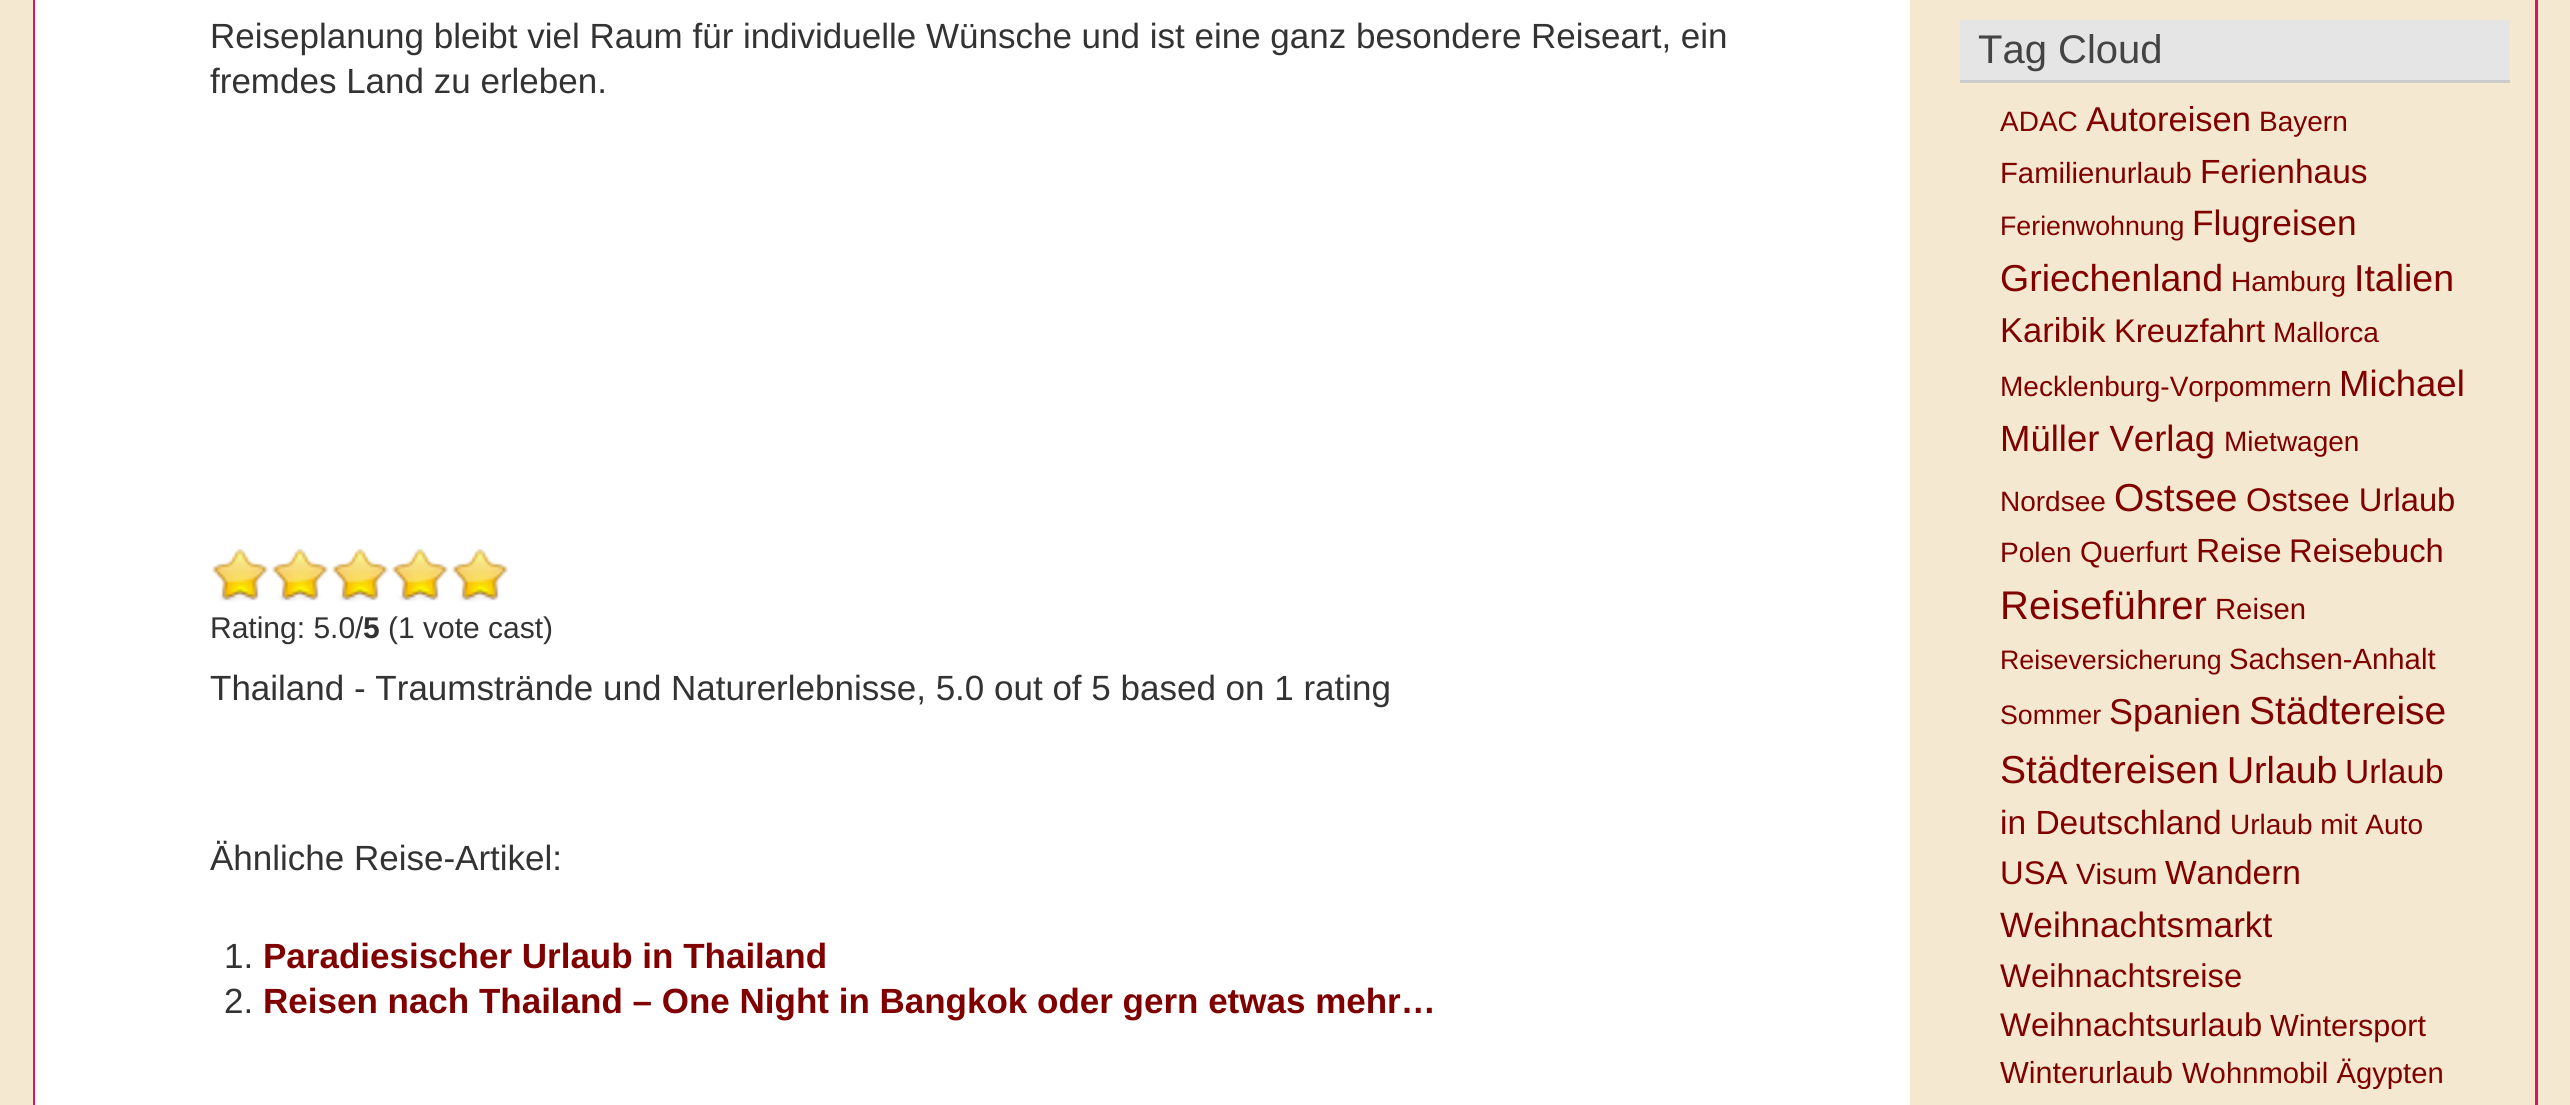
#include <cairo.h>
#include <math.h>
#include <stddef.h>


static void rgb(cairo_t *cr, int r, int g, int b)
{
	cairo_set_source_rgb(cr, r / 255.0, g / 255.0, b / 255.0);
}

static void face(cairo_t *cr, const char *family, double size, int italic, int bold)
{
	cairo_select_font_face(cr, family, italic ? CAIRO_FONT_SLANT_ITALIC : CAIRO_FONT_SLANT_NORMAL,
		bold ? CAIRO_FONT_WEIGHT_BOLD : CAIRO_FONT_WEIGHT_NORMAL);
	cairo_set_font_size(cr, size);
}

static void label(cairo_t *cr, double x, double y, const char *s)
{
	cairo_move_to(cr, x, y);
	cairo_show_text(cr, s);
}

static void rect(cairo_t *cr, double x, double y, double w, double h)
{
	cairo_rectangle(cr, x, y, w, h);
	cairo_fill(cr);
}

static void image(cairo_t *cr, const char *path, double x, double y, double w, double h)
{
	cairo_surface_t *image = cairo_image_surface_create_from_png(path);
	cairo_save(cr);
	cairo_set_source_surface(cr, image, x, y);
	cairo_rectangle(cr, x, y, w, h);
	cairo_fill(cr);
	cairo_restore(cr);
	cairo_surface_destroy(image);
}

static void draw(cairo_t *cr) {
	rgb(cr, 245, 232, 209);
	cairo_paint(cr);
	cairo_rectangle(cr, 34.5, -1.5, 2502, 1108);
	rgb(cr, 216, 20, 105);
	cairo_set_line_width(cr, 3);
	cairo_stroke(cr);
	rgb(cr, 255, 255, 255);
	rect(cr, 35, 0, 1875, 1105);
	face(cr, "Liberation Sans", 35, 0, 0);
	rgb(cr, 51, 51, 51);
	label(cr, 210, 48, "Reiseplanung bleibt viel Raum für individuelle Wünsche und ist eine ganz besondere Reiseart, ein");
	label(cr, 210, 93, "fremdes Land zu erleben.");
	image(cr, "image0.png", 212, 549, 296, 53);
	image(cr, "image1.png", 212, 548, 296, 53);
	face(cr, "Liberation Sans", 30, 0, 0);
	label(cr, 210, 638, "Rating: 5.0/");
	face(cr, "Liberation Sans", 30, 0, 1);
	label(cr, 363, 638, "5");
	face(cr, "Liberation Sans", 30, 0, 0);
	label(cr, 388, 638, "(1 vote cast)");
	face(cr, "Liberation Sans", 35, 0, 0);
	label(cr, 210, 700, "Thailand - Traumstrände und Naturerlebnisse, 5.0 out of 5 based on 1 rating");
	label(cr, 210, 870, "Ähnliche Reise-Artikel:");
	label(cr, 224, 968, "1.");
	face(cr, "Liberation Sans", 35, 0, 1);
	rgb(cr, 128, 0, 0);
	label(cr, 263, 968, "Paradiesischer Urlaub in Thailand");
	face(cr, "Liberation Sans", 35, 0, 0);
	rgb(cr, 51, 51, 51);
	label(cr, 224, 1013, "2.");
	face(cr, "Liberation Sans", 35, 0, 1);
	rgb(cr, 128, 0, 0);
	label(cr, 263, 1013, "Reisen nach Thailand – One Night in Bangkok oder gern etwas mehr…");
	rgb(cr, 229, 229, 229);
	rect(cr, 1960, 20, 550, 60);
	rgb(cr, 204, 204, 204);
	rect(cr, 1960, 80, 550, 3);
	face(cr, "Liberation Sans", 40, 0, 0);
	rgb(cr, 68, 68, 68);
	label(cr, 1978, 63, "Tag Cloud");
	face(cr, "Liberation Sans", 28, 0, 0);
	rgb(cr, 128, 0, 0);
	label(cr, 2000, 131, "ADAC");
	face(cr, "Liberation Sans", 34.5, 0, 0);
	label(cr, 2086, 131, "Autoreisen");
	face(cr, "Liberation Sans", 28, 0, 0);
	label(cr, 2259, 131, "Bayern");
	face(cr, "Liberation Sans", 29.25, 0, 0);
	label(cr, 2000, 183, "Familienurlaub");
	face(cr, "Liberation Sans", 33.5, 0, 0);
	label(cr, 2200, 183, "Ferienhaus");
	face(cr, "Liberation Sans", 26.75, 0, 0);
	label(cr, 2000, 235, "Ferienwohnung");
	face(cr, "Liberation Sans", 35.25, 0, 0);
	label(cr, 2192, 235, "Flugreisen");
	face(cr, "Liberation Sans", 37.5, 0, 0);
	label(cr, 2000, 291, "Griechenland");
	face(cr, "Liberation Sans", 28, 0, 0);
	label(cr, 2231, 291, "Hamburg");
	face(cr, "Liberation Sans", 37.5, 0, 0);
	label(cr, 2354, 291, "Italien");
	face(cr, "Liberation Sans", 34.5, 0, 0);
	label(cr, 2000, 342, "Karibik");
	face(cr, "Liberation Sans", 32.75, 0, 0);
	label(cr, 2114, 342, "Kreuzfahrt");
	face(cr, "Liberation Sans", 28, 0, 0);
	label(cr, 2273, 342, "Mallorca");
	label(cr, 2000, 396, "Mecklenburg-Vorpommern");
	face(cr, "Liberation Sans", 36.5, 0, 0);
	label(cr, 2339, 396, "Michael");
	label(cr, 2000, 451, "Müller Verlag");
	face(cr, "Liberation Sans", 28, 0, 0);
	label(cr, 2224, 451, "Mietwagen");
	label(cr, 2000, 511, "Nordsee");
	face(cr, "Liberation Sans", 39, 0, 0);
	label(cr, 2114, 511, "Ostsee");
	face(cr, "Liberation Sans", 32.75, 0, 0);
	label(cr, 2246, 511, "Ostsee Urlaub");
	face(cr, "Liberation Sans", 28, 0, 0);
	label(cr, 2000, 562, "Polen");
	face(cr, "Liberation Sans", 29.25, 0, 0);
	label(cr, 2080, 562, "Querfurt");
	face(cr, "Liberation Sans", 33.5, 0, 0);
	label(cr, 2196, 562, "Reise");
	face(cr, "Liberation Sans", 32.75, 0, 0);
	label(cr, 2289, 562, "Reisebuch");
	face(cr, "Liberation Sans", 40, 0, 0);
	label(cr, 2000, 619, "Reiseführer");
	face(cr, "Liberation Sans", 29.25, 0, 0);
	label(cr, 2215, 619, "Reisen");
	face(cr, "Liberation Sans", 26.75, 0, 0);
	label(cr, 2000, 669, "Reiseversicherung");
	face(cr, "Liberation Sans", 29.25, 0, 0);
	label(cr, 2229, 669, "Sachsen-Anhalt");
	face(cr, "Liberation Sans", 26.75, 0, 0);
	label(cr, 2000, 724, "Sommer");
	face(cr, "Liberation Sans", 36, 0, 0);
	label(cr, 2109, 724, "Spanien");
	face(cr, "Liberation Sans", 39, 0, 0);
	label(cr, 2249, 724, "Städtereise");
	label(cr, 2000, 783, "Städtereisen");
	face(cr, "Liberation Sans", 37.5, 0, 0);
	label(cr, 2227, 783, "Urlaub");
	face(cr, "Liberation Sans", 33.5, 0, 0);
	label(cr, 2345, 783, "Urlaub");
	label(cr, 2000, 834, "in Deutschland");
	face(cr, "Liberation Sans", 28, 0, 0);
	label(cr, 2230, 834, "Urlaub mit Auto");
	face(cr, "Liberation Sans", 32.75, 0, 0);
	label(cr, 2000, 884, "USA");
	face(cr, "Liberation Sans", 29.25, 0, 0);
	label(cr, 2076, 884, "Visum");
	face(cr, "Liberation Sans", 33.5, 0, 0);
	label(cr, 2165, 884, "Wandern");
	face(cr, "Liberation Sans", 35.25, 0, 0);
	label(cr, 2000, 937, "Weihnachtsmarkt");
	face(cr, "Liberation Sans", 32.75, 0, 0);
	label(cr, 2000, 987, "Weihnachtsreise");
	label(cr, 2000, 1036, "Weihnachtsurlaub");
	face(cr, "Liberation Sans", 30.5, 0, 0);
	label(cr, 2270, 1036, "Wintersport");
	label(cr, 2000, 1083, "Winterurlaub");
	face(cr, "Liberation Sans", 29.25, 0, 0);
	label(cr, 2182, 1083, "Wohnmobil Ägypten");
}

int main(void) {
	cairo_surface_t *surface = cairo_image_surface_create(CAIRO_FORMAT_RGB24, 2570, 1105);
	cairo_t *cr = cairo_create(surface);
	cairo_font_options_t *options = cairo_font_options_create();
	cairo_font_options_set_hint_metrics(options, CAIRO_HINT_METRICS_OFF);
	cairo_font_options_set_hint_style(options, CAIRO_HINT_STYLE_NONE);
	cairo_set_font_options(cr, options);
	cairo_set_miter_limit(cr, 4);
	draw(cr);
	cairo_surface_write_to_png(surface, "render.png");
	cairo_font_options_destroy(options);
	cairo_destroy(cr);
	cairo_surface_destroy(surface);
	return 0;
}
